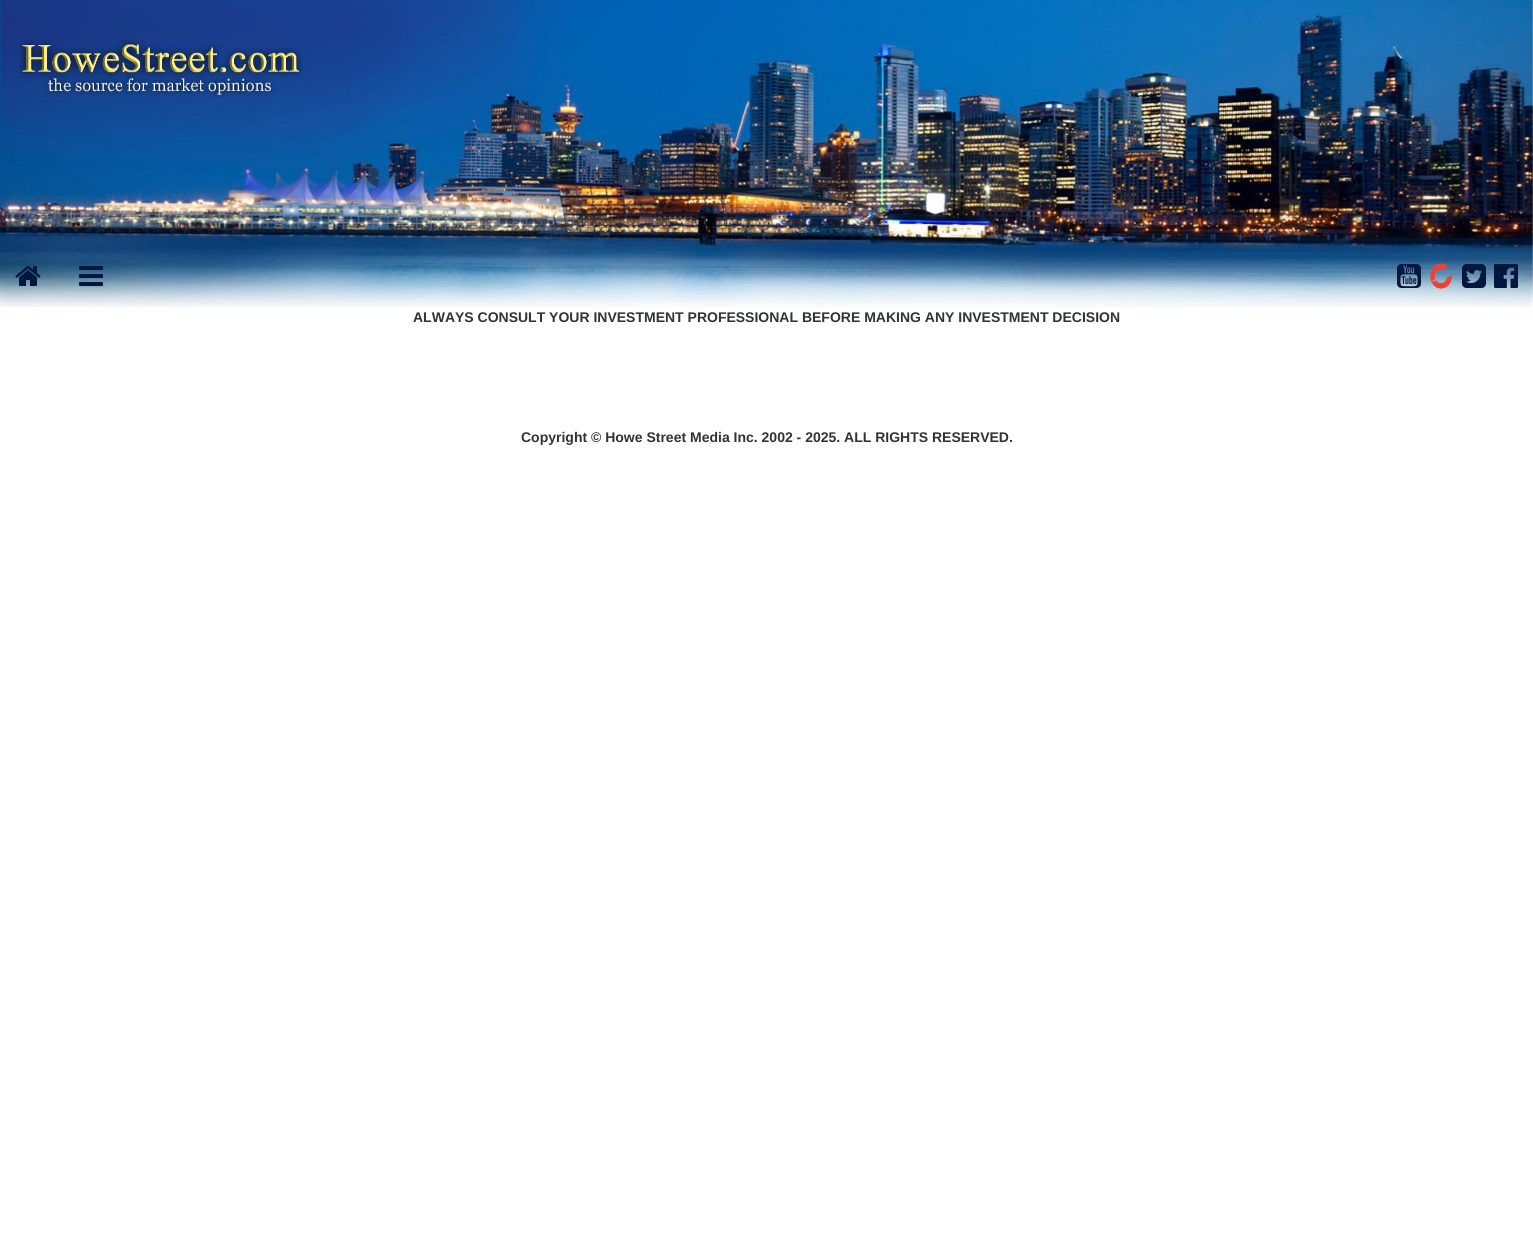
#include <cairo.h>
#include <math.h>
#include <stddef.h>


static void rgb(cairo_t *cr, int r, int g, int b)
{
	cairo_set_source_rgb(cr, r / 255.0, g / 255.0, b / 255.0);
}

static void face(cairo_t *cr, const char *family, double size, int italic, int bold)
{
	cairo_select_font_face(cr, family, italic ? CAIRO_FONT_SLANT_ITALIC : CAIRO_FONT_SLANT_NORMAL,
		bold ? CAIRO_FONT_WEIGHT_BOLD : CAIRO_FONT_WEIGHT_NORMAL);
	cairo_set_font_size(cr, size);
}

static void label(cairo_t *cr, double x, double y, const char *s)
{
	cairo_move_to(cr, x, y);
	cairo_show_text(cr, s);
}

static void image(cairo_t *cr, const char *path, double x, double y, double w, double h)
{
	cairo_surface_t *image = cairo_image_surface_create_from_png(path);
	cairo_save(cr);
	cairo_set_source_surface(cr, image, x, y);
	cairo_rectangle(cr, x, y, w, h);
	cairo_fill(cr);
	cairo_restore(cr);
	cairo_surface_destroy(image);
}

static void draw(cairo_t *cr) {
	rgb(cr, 255, 255, 255);
	cairo_paint(cr);
	image(cr, "image6.png", 0, 0, 1533, 307);
	image(cr, "image0.png", 15, 266, 26, 20);
	image(cr, "image1.png", 79, 266, 24, 20);
	image(cr, "image2.png", 1397, 264, 24, 24);
	image(cr, "image3.png", 1430, 263, 22, 26);
	image(cr, "image4.png", 1462, 264, 24, 24);
	image(cr, "image5.png", 1494, 264, 24, 24);
	image(cr, "image7.png", 19, 38, 285, 60);
	face(cr, "Liberation Sans", 14, 0, 1);
	rgb(cr, 51, 51, 51);
	label(cr, 413, 322, "ALWAYS CONSULT YOUR INVESTMENT PROFESSIONAL BEFORE MAKING ANY INVESTMENT DECISION");
	label(cr, 521, 442, "Copyright © Howe Street Media Inc. 2002 - 2025. ALL RIGHTS RESERVED.");
}

int main(void) {
	cairo_surface_t *surface = cairo_image_surface_create(CAIRO_FORMAT_RGB24, 1533, 1234);
	cairo_t *cr = cairo_create(surface);
	cairo_font_options_t *options = cairo_font_options_create();
	cairo_font_options_set_hint_metrics(options, CAIRO_HINT_METRICS_OFF);
	cairo_font_options_set_hint_style(options, CAIRO_HINT_STYLE_NONE);
	cairo_set_font_options(cr, options);
	cairo_set_miter_limit(cr, 4);
	draw(cr);
	cairo_surface_write_to_png(surface, "render.png");
	cairo_font_options_destroy(options);
	cairo_destroy(cr);
	cairo_surface_destroy(surface);
	return 0;
}
